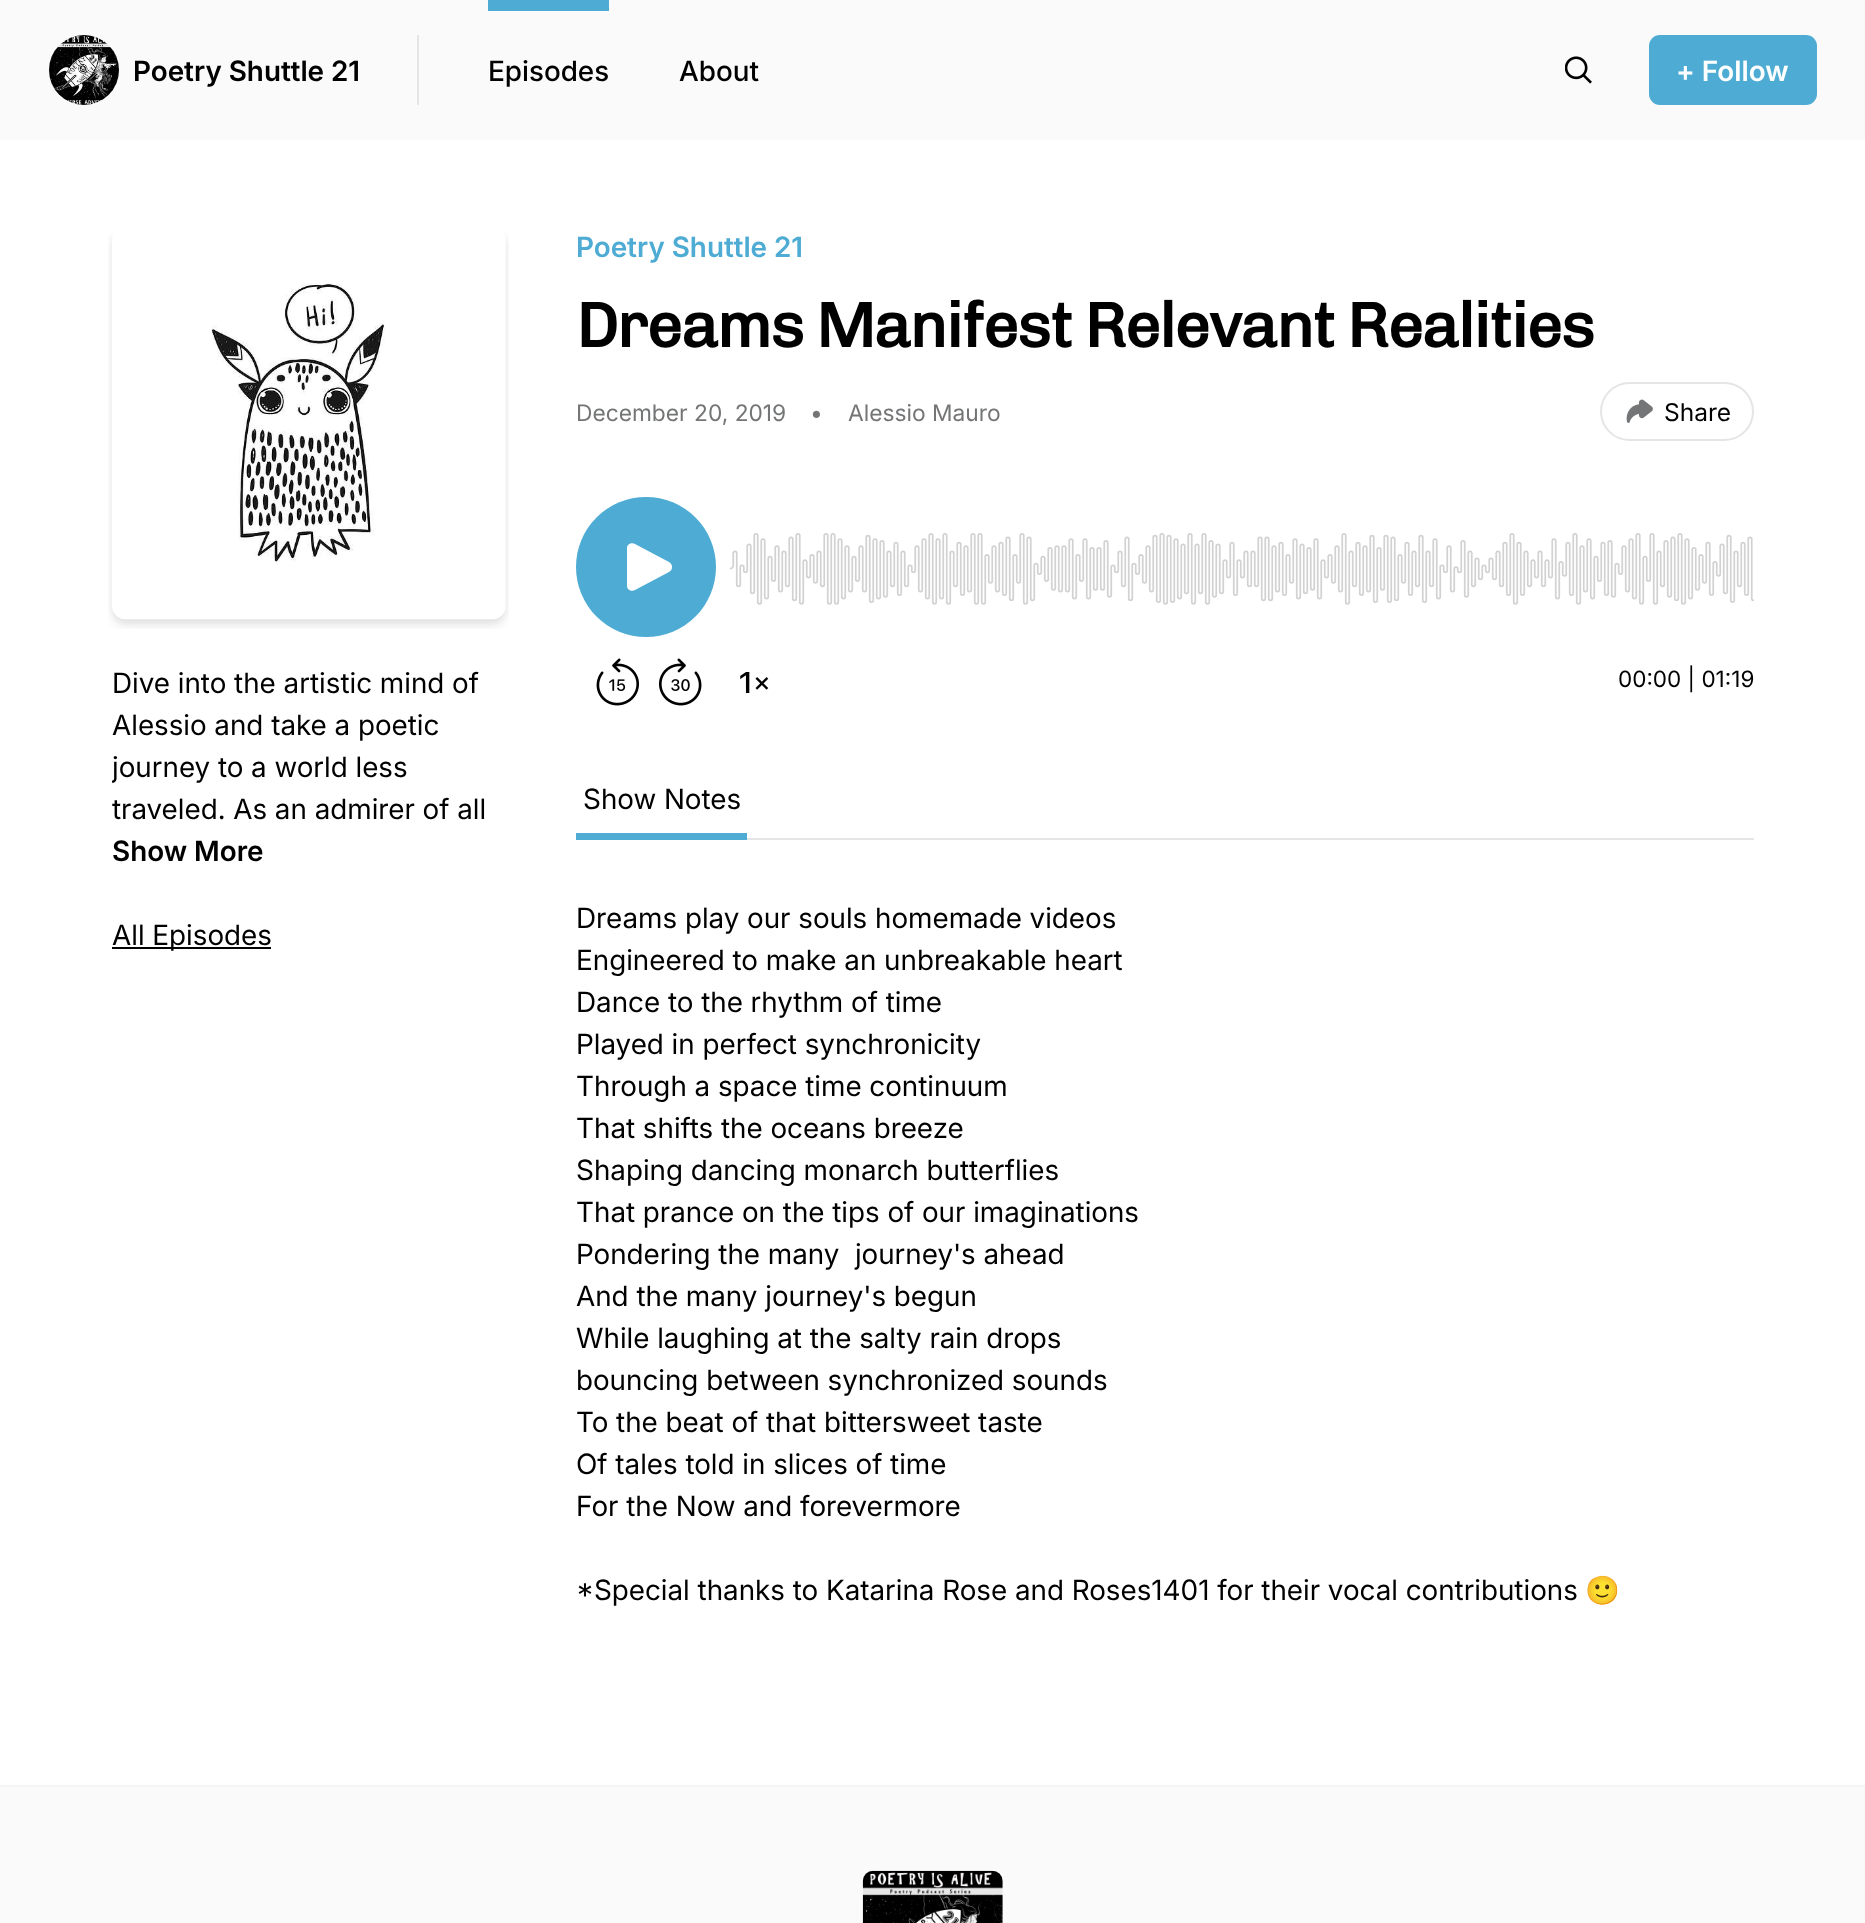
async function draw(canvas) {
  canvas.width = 1865;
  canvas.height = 1923;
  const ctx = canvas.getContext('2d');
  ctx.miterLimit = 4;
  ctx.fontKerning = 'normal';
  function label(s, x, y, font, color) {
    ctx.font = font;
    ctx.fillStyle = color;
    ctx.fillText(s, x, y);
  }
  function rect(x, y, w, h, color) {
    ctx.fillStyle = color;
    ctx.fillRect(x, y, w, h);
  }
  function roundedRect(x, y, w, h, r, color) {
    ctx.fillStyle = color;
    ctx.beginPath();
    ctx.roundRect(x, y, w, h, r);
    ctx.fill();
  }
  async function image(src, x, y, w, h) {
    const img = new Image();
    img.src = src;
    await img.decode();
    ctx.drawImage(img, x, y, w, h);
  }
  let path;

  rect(0, 0, 1865, 1923, '#fff');
  rect(0, 0, 1865, 140, '#fafafa');
  rect(417, 35, 2, 70, '#e4e5e6');
  await image('assets/img1.png', 49, 35, 70, 70);
  label('Poetry Shuttle 21', 133, 81, '600 28px Inter', '#000');
  rect(488, 0, 121, 11, '#4eacd4');
  label('Episodes', 488, 81, '500 28px Inter', '#000');
  label('About', 679, 81, '500 28px Inter', '#000');
  await image('assets/img2.png', 1565, 56, 27, 28);
  roundedRect(1649, 35, 168, 70, 11, '#4eacd4');
  label('+ Follow', 1676, 81, '600 28px Inter', '#fff');
  await image('assets/img3.png', 108, 233, 401, 396);
  label('Dive into the artistic mind of', 112, 693, '28px Inter', '#000');
  label('Alessio and take a poetic', 112, 735, '28px Inter', '#000');
  ctx.save();
  ctx.beginPath();
  ctx.rect(112, 662, 394, 168);
  ctx.clip();
  label('journey to a world less', 112, 777, '28px Inter', '#000');
  ctx.restore();
  label('traveled. As an admirer of all', 112, 819, '28px Inter', '#000');
  label('Show More', 112, 861, '600 28px Inter', '#000');
  rect(112, 947, 159, 2, '#000');
  label('All Episodes', 112, 945, '28px Inter', '#000');
  label('Poetry Shuttle 21', 576, 257, '600 28px Inter', '#4eacd4');
  ctx.letterSpacing = '-1.55px';
  label('Dreams Manifest Relevant Realities', 576, 347, 'bold 63px Chivo', '#000');
  ctx.letterSpacing = '0px';
  label('December 20, 2019', 576, 421, '22.75px "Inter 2"', '#747576');
  label('•', 810, 421, '22.75px "Inter 2"', '#747576');
  label('Alessio Mauro', 848, 421, '22.75px "Inter 2"', '#747576');
  ctx.beginPath();
  ctx.roundRect(1601, 383, 152, 57, 28.5);
  ctx.strokeStyle = '#e4e5e6';
  ctx.lineWidth = 2;
  ctx.stroke();
  await image('assets/img4.png', 1626, 399, 27, 24);
  label('Share', 1664, 421, '24.5px "Inter 2"', '#000');
  await image('assets/img5.png', 596, 658, 43, 48);
  await image('assets/img6.png', 659, 658, 43, 48);
  await image('assets/img7.png', 740, 672, 29, 21);
  ctx.fillStyle = '#4eacd4';
  ctx.beginPath();
  ctx.arc(646, 567, 70, 0, 2 * Math.PI);
  ctx.fill();
  ctx.fillStyle = '#fff';
  path = new Path2D('M627 548C627 544 632 542 635 544L669 562C673 564 673 570 669 572L635 590C632 592 627 590 627 586Z');
  ctx.fill(path, 'evenodd');
  await image('assets/img8.png', 730, 533, 1024, 72);
  label('00:00 | 01:19', 1618, 687, '22.5px "Inter 2"', '#000');
  rect(747, 838, 1007, 2, '#e4e5e6');
  rect(576, 833, 171, 7, '#4eacd4');
  label('Show Notes', 583, 809, '28px Inter', '#000');
  label('Dreams play our souls homemade videos', 576, 928, '28px Inter', '#000');
  label('Engineered to make an unbreakable heart', 576, 970, '28px Inter', '#000');
  label('Dance to the rhythm of time', 576, 1012, '28px Inter', '#000');
  label('Played in perfect synchronicity', 576, 1054, '28px Inter', '#000');
  label('Through a space time continuum', 576, 1096, '28px Inter', '#000');
  label('That shifts the oceans breeze', 576, 1138, '28px Inter', '#000');
  label('Shaping dancing monarch butterflies', 576, 1180, '28px Inter', '#000');
  label('That prance on the tips of our imaginations', 576, 1222, '28px Inter', '#000');
  label('Pondering the many  journey\'s ahead', 576, 1264, '28px Inter', '#000');
  label('And the many journey\'s begun', 576, 1306, '28px Inter', '#000');
  label('While laughing at the salty rain drops', 576, 1348, '28px Inter', '#000');
  label('bouncing between synchronized sounds', 576, 1390, '28px Inter', '#000');
  label('To the beat of that bittersweet taste', 576, 1432, '28px Inter', '#000');
  label('Of tales told in slices of time', 576, 1474, '28px Inter', '#000');
  label('For the Now and forevermore', 576, 1516, '28px Inter', '#000');
  label('*Special thanks to Katarina Rose and Roses1401 for their vocal contributions', 576, 1600, '28px Inter', '#000');
  label('🙂', 1585, 1600, '28px Noto Color Emoji', '#000');
  rect(0, 1787, 1865, 136, '#fafafa');
  rect(0, 1785, 1865, 2, '#f4f4f4');
  await image('assets/img9.png', 862, 1870, 141, 53);
}

draw(document.querySelector('canvas'));
